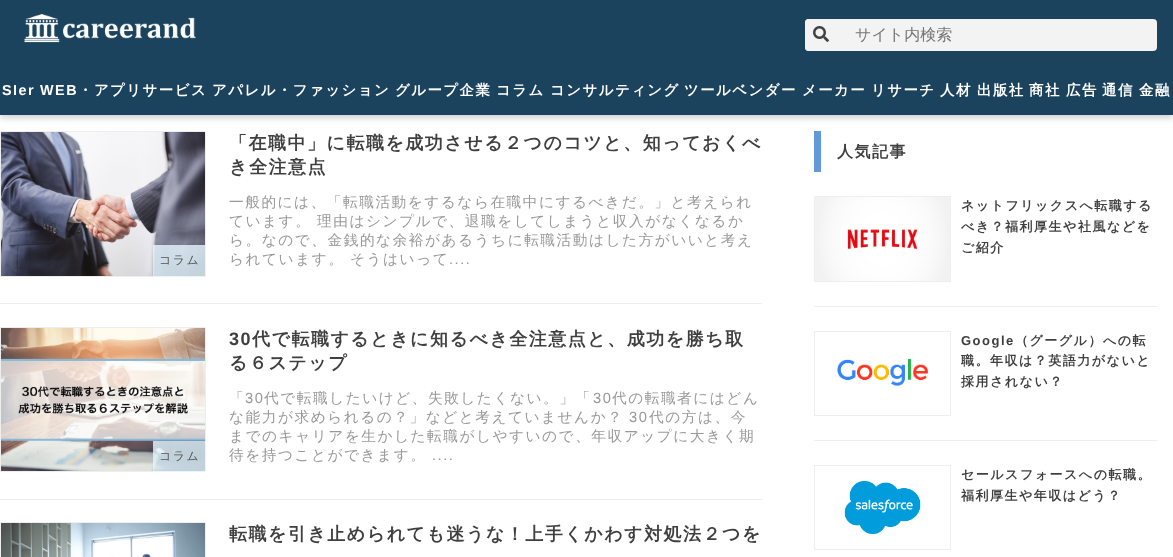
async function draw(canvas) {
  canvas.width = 1173;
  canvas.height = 557;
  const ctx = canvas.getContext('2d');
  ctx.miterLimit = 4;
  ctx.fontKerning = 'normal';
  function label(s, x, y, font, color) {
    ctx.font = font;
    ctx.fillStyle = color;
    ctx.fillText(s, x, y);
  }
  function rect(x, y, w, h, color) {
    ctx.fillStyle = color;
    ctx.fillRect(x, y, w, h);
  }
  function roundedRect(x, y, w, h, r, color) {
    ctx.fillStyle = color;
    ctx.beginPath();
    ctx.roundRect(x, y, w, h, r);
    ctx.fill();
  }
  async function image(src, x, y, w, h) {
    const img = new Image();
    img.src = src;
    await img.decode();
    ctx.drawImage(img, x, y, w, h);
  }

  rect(0, 0, 1173, 557, '#fff');
  ctx.fillStyle = '#0000002e';
  ctx.filter = 'blur(3px)';
  ctx.beginPath();
  ctx.rect(0, 3, 1173, 115);
  ctx.fill();
  ctx.filter = 'none';
  rect(0, 0, 1173, 115, '#1b435d');
  await image('assets/img1.png', 24, 14, 172, 29);
  roundedRect(805, 19, 352, 32, 4, '#f3f3f3');
  roundedRect(805, 19, 32, 32, 4, '#f3f3f3');
  await image('assets/img2.png', 813, 26, 16, 16);
  label('サイト内検索', 855, 40, '500 16px WenQuanYi Zen Hei', '#757575');
  ctx.letterSpacing = '1.5px';
  label('SIer', 2, 95, 'bold 14.4px Liberation Sans', '#fff');
  label('WEB', 40, 95, 'bold 14.4px Liberation Sans', '#fff');
  label('・アプリサービス', 78, 95, 'bold 14.4px WenQuanYi Zen Hei', '#fff');
  label('アパレル・ファッション', 212, 95, 'bold 14.4px WenQuanYi Zen Hei', '#fff');
  label('グループ企業', 395, 95, 'bold 14.4px WenQuanYi Zen Hei', '#fff');
  label('コラム', 496, 95, 'bold 14.4px WenQuanYi Zen Hei', '#fff');
  label('コンサルティング', 550, 95, 'bold 14.4px WenQuanYi Zen Hei', '#fff');
  label('ツールベンダー', 684, 95, 'bold 14.4px WenQuanYi Zen Hei', '#fff');
  label('メーカー', 802, 95, 'bold 14.4px WenQuanYi Zen Hei', '#fff');
  label('リサーチ', 871, 95, 'bold 14.4px WenQuanYi Zen Hei', '#fff');
  label('人材', 940, 95, 'bold 14.4px WenQuanYi Zen Hei', '#fff');
  label('出版社', 977, 95, 'bold 14.4px WenQuanYi Zen Hei', '#fff');
  label('商社', 1029, 95, 'bold 14.4px WenQuanYi Zen Hei', '#fff');
  label('広告', 1066, 95, 'bold 14.4px WenQuanYi Zen Hei', '#fff');
  label('通信', 1102, 95, 'bold 14.4px WenQuanYi Zen Hei', '#fff');
  label('金融', 1139, 95, 'bold 14.4px WenQuanYi Zen Hei', '#fff');
  rect(0, 303, 762, 1, '#eee');
  await image('assets/img3.png', 1, 132, 204, 144);
  ctx.strokeStyle = '#eee';
  ctx.strokeRect(0.5, 131.5, 205, 145);
  rect(153, 245, 53, 32, '#e6f7ffcc');
  label('コラム', 159, 264, '500 12px WenQuanYi Zen Hei', '#525456');
  label('「在職中」に転職を成功させる２つのコツと、知っておくべ', 229, 149, 'bold 18px WenQuanYi Zen Hei', '#3f3f3f');
  label('き全注意点', 229, 173, 'bold 18px WenQuanYi Zen Hei', '#3f3f3f');
  label('一般的には、「転職活動をするなら在職中にするべきだ。」と考えられ', 229, 207, '500 14.7px WenQuanYi Zen Hei', '#999');
  label('ています。', 229, 226, '500 14.7px WenQuanYi Zen Hei', '#999');
  label('理由はシンプルで、退職をしてしまうと収入がなくなるか', 317, 226, '500 14.7px WenQuanYi Zen Hei', '#999');
  label('ら。なので、金銭的な余裕があるうちに転職活動はした方がいいと考え', 229, 245, '500 14.7px WenQuanYi Zen Hei', '#999');
  label('られています。', 229, 264, '500 14.7px WenQuanYi Zen Hei', '#999');
  label('そうはいって', 350, 264, '500 14.7px WenQuanYi Zen Hei', '#999');
  label('....', 449, 264, '14.7px Liberation Sans', '#999');
  rect(0, 499, 762, 1, '#eee');
  await image('assets/img4.png', 1, 328, 204, 143);
  ctx.strokeRect(0.5, 327.5, 205, 144);
  rect(153, 441, 53, 31, '#e6f7ffcc');
  label('コラム', 159, 460, '500 12px WenQuanYi Zen Hei', '#525456');
  label('30', 229, 345, 'bold 18px Liberation Sans', '#3f3f3f');
  label('代で転職するときに知るべき全注意点と、成功を勝ち取', 252, 345, 'bold 18px WenQuanYi Zen Hei', '#3f3f3f');
  label('る６ステップ', 229, 369, 'bold 18px WenQuanYi Zen Hei', '#3f3f3f');
  label('「', 229, 403, '500 14.7px WenQuanYi Zen Hei', '#999');
  label('30', 245, 403, '14.7px Liberation Sans', '#999');
  label('代で転職したいけど、失敗したくない。」「', 264, 403, '500 14.7px WenQuanYi Zen Hei', '#999');
  label('30', 593, 403, '14.7px Liberation Sans', '#999');
  label('代の転職者にはどん', 612, 403, '500 14.7px WenQuanYi Zen Hei', '#999');
  label('な能力が求められるの？」などと考えていませんか？', 229, 422, '500 14.7px WenQuanYi Zen Hei', '#999');
  label('30', 629, 422, '14.7px Liberation Sans', '#999');
  label('代の方は、今', 649, 422, '500 14.7px WenQuanYi Zen Hei', '#999');
  label('までのキャリアを生かした転職がしやすいので、年収アップに大きく期', 229, 441, '500 14.7px WenQuanYi Zen Hei', '#999');
  label('待を持つことができます。', 229, 460, '500 14.7px WenQuanYi Zen Hei', '#999');
  label('....', 432, 460, '14.7px Liberation Sans', '#999');
  await image('assets/img5.png', 1, 523, 204, 34);
  ctx.strokeRect(0.5, 522.5, 205, 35);
  label('転職を引き止められても迷うな！上手くかわす対処法２つを', 229, 540, 'bold 18px WenQuanYi Zen Hei', '#3f3f3f');
  rect(814, 131, 7, 41, '#6299d8');
  label('人気記事', 837, 157, 'bold 16px WenQuanYi Zen Hei', '#3f3f3f');
  rect(814, 306, 343, 1, '#eee');
  await image('assets/img6.png', 815, 197, 135, 84);
  ctx.strokeRect(814.5, 196.5, 136, 85);
  label('ネットフリックスへ転職する', 961, 210, 'bold 13px WenQuanYi Zen Hei', '#3f3f3f');
  label('べき？福利厚生や社風などを', 961, 231, 'bold 13px WenQuanYi Zen Hei', '#3f3f3f');
  label('ご紹介', 961, 252, 'bold 13px WenQuanYi Zen Hei', '#3f3f3f');
  rect(814, 440, 343, 1, '#eee');
  await image('assets/img7.png', 837, 358, 91, 28);
  ctx.strokeRect(814.5, 331.5, 136, 84);
  label('Google', 961, 345, 'bold 13px Liberation Sans', '#3f3f3f');
  label('（グーグル）への転', 1015, 345, 'bold 13px WenQuanYi Zen Hei', '#3f3f3f');
  label('職。年収は？英語力がないと', 961, 365, 'bold 13px WenQuanYi Zen Hei', '#3f3f3f');
  label('採用されない？', 961, 386, 'bold 13px WenQuanYi Zen Hei', '#3f3f3f');
  await image('assets/img8.png', 844, 481, 77, 53);
  ctx.strokeRect(814.5, 465.5, 136, 84);
  label('セールスフォースへの転職。', 961, 479, 'bold 13px WenQuanYi Zen Hei', '#3f3f3f');
  label('福利厚生や年収はどう？', 961, 500, 'bold 13px WenQuanYi Zen Hei', '#3f3f3f');
}

draw(document.querySelector('canvas'));
